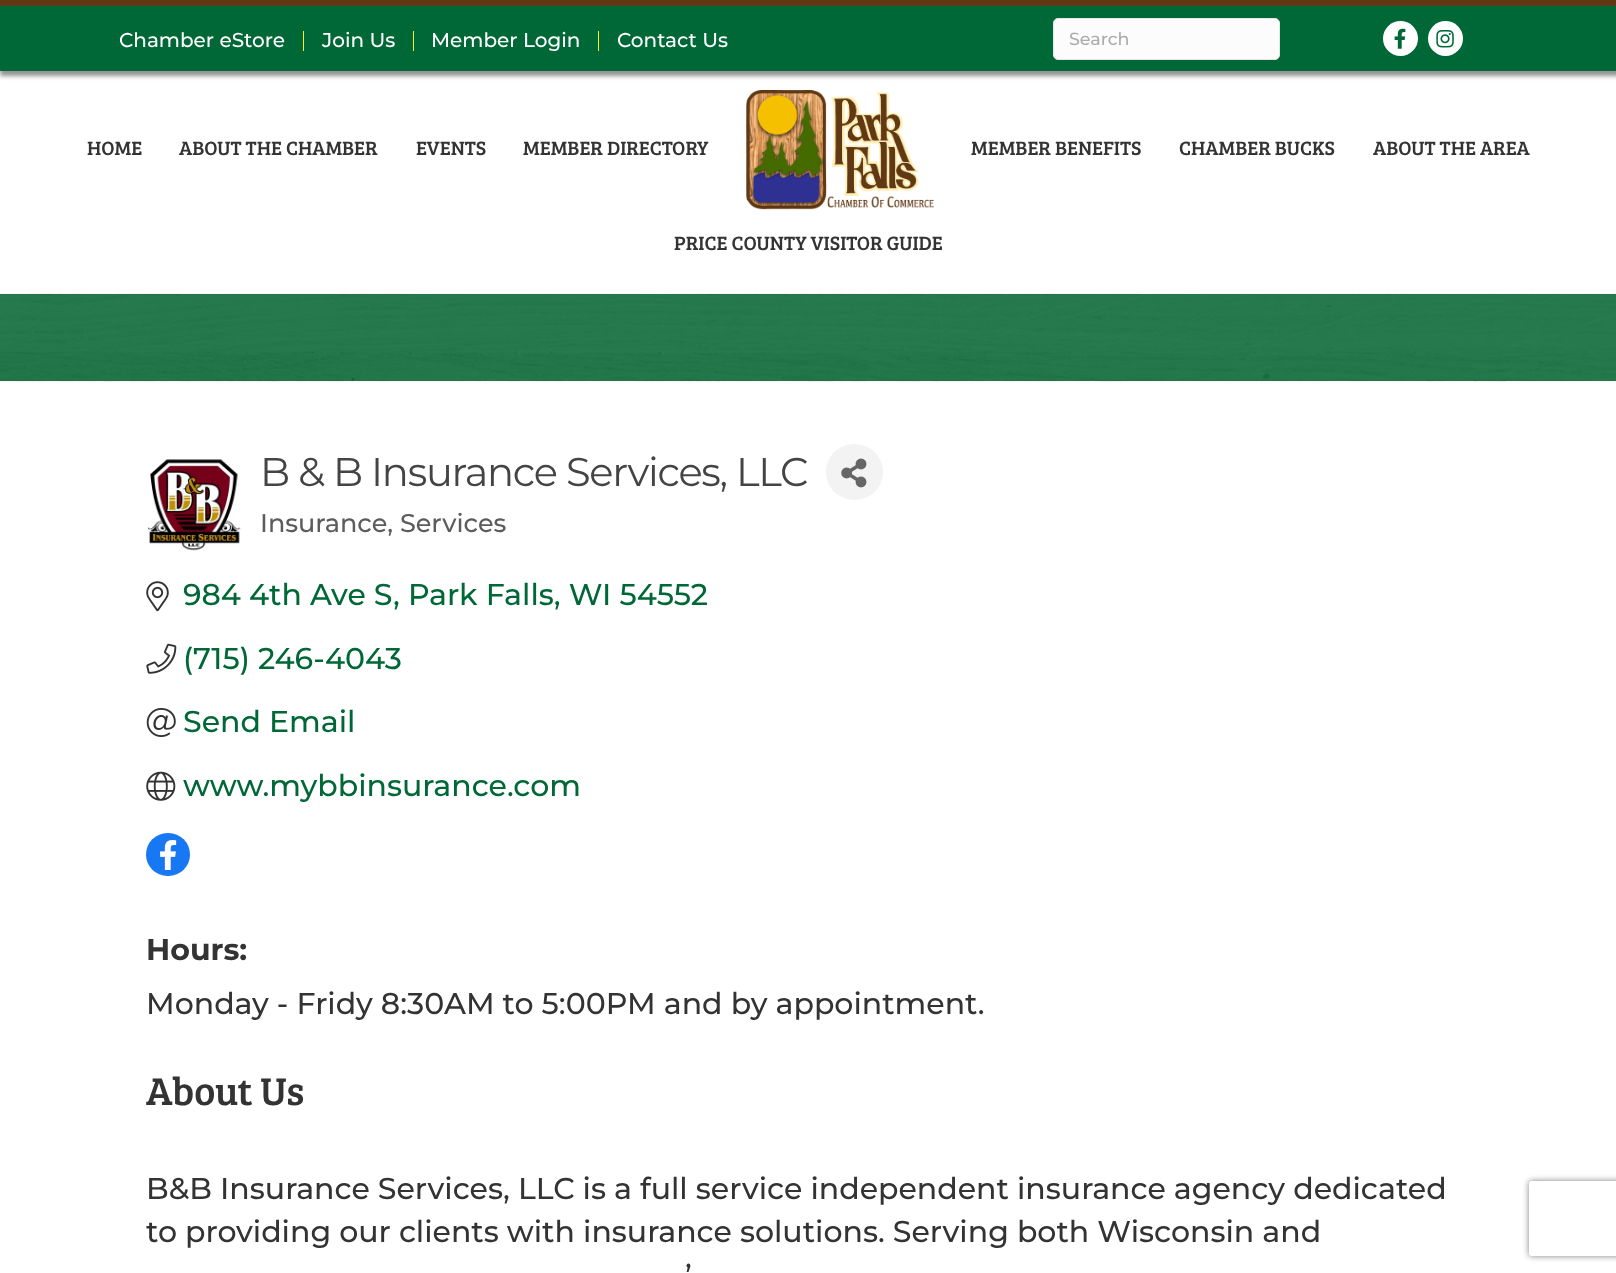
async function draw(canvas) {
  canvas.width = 1616;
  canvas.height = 1273;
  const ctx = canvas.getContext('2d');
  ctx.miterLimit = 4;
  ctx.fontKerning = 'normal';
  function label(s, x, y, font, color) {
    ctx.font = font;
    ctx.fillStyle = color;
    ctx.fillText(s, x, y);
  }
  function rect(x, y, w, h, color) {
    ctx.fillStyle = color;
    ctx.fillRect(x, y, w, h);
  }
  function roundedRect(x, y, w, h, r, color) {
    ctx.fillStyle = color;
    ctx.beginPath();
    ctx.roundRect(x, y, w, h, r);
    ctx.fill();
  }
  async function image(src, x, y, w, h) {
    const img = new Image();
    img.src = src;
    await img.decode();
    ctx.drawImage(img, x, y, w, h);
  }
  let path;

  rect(0, 0, 1616, 1273, '#fff');
  ctx.fillStyle = '#33333387';
  ctx.filter = 'blur(2px)';
  ctx.beginPath();
  ctx.rect(0, 0, 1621, 76);
  ctx.fill();
  ctx.filter = 'none';
  rect(0, 6, 1616, 65, '#006837');
  rect(0, 0, 1616, 6, '#603813');
  label('Chamber eStore', 119, 47, '500 20px Montserrat', '#fff');
  rect(303, 31, 1, 20, '#fcee21');
  label('Join Us', 322, 47, '500 20px Montserrat', '#fff');
  rect(413, 31, 1, 20, '#fcee21');
  label('Member Login', 431, 47, '500 20px Montserrat', '#fff');
  rect(598, 31, 1, 20, '#fcee21');
  label('Contact Us', 617, 47, '500 20px Montserrat', '#fff');
  ctx.fillStyle = '#fcfcfc';
  ctx.beginPath();
  ctx.roundRect(1053.5, 18.5, 226, 41, 4.5);
  ctx.fill();
  ctx.strokeStyle = '#e6e6e6';
  ctx.stroke();
  label('Search', 1069, 45, '500 17.5px Montserrat', '#acacac');
  ctx.fillStyle = '#fff';
  ctx.beginPath();
  ctx.arc(1400.5, 38.5, 17.5, 0, 2 * Math.PI);
  ctx.fill();
  await image('assets/img1.png', 1394, 28, 12, 21);
  ctx.beginPath();
  ctx.arc(1445.5, 38.5, 17.5, 0, 2 * Math.PI);
  ctx.fill();
  await image('assets/img2.png', 1436, 30, 18, 18);
  label('HOME', 87, 155, '20px Bree Serif', '#333');
  label('ABOUT THE CHAMBER', 179, 155, '20px Bree Serif', '#333');
  label('EVENTS', 416, 155, '20px Bree Serif', '#333');
  label('MEMBER DIRECTORY', 523, 155, '20px Bree Serif', '#333');
  await image('assets/img3.png', 746, 90, 188, 120);
  label('MEMBER BENEFITS', 971, 155, '20px Bree Serif', '#333');
  label('CHAMBER BUCKS', 1179, 155, '20px Bree Serif', '#333');
  label('ABOUT THE AREA', 1373, 155, '20px Bree Serif', '#333');
  label('PRICE COUNTY VISITOR GUIDE', 674, 250, '20px Bree Serif', '#333');
  await image('assets/img4.png', 0, 293, 1616, 89);
  await image('assets/img5.png', 148, 459, 93, 92);
  ctx.letterSpacing = '-1.25px';
  label('B & B Insurance Services, LLC', 260, 486, '40px Montserrat', '#444');
  roundedRect(826, 444, 57, 56, 28, '#f3f3f3');
  await image('assets/img6.png', 841, 458, 26, 30);
  ctx.letterSpacing = '0px';
  label('Insurance, Services', 260, 532, '500 25.5px Montserrat', '#5c5c5c');
  await image('assets/img7.png', 146, 581, 23, 31);
  label('984 4th Ave S', 183, 605, '500 30px Montserrat', '#006837');
  label(', Park Falls, WI 54552', 393, 605, '500 30px Montserrat', '#006837');
  await image('assets/img8.png', 146, 643, 31, 31);
  label('(715) 246-4043', 183, 669, '500 30px Montserrat', '#006837');
  await image('assets/img9.png', 146, 708, 30, 29);
  label('Send Email', 183, 732, '500 30px Montserrat', '#006837');
  await image('assets/img10.png', 146, 771, 30, 30);
  label('www.mybbinsurance.com', 183, 796, '500 30px Montserrat', '#006837');
  roundedRect(146, 833, 44, 43, 21.5, '#1877f2');
  await image('assets/img11.png', 160, 840, 17, 30);
  label('Hours:', 146, 960, 'bold 30px Montserrat', '#333');
  label('Monday - Fridy 8:30AM to 5:00PM and by appointment.', 146, 1014, '500 30px Montserrat', '#333');
  label('About Us', 146, 1105, '40px Bree Serif', '#333');
  label('B&B Insurance Services, LLC is a full service independent insurance agency dedicated', 146, 1199, '500 30px Montserrat', '#333');
  label('to providing our clients with insurance solutions. Serving both Wisconsin and', 146, 1242, '500 30px Montserrat', '#333');
  label('’', 685, 1286, '500 30px Montserrat', '#333');
  ctx.save();
  path = new Path2D('M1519 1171H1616V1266H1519ZM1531.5 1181H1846.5C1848 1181 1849 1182 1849 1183.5V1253.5C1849 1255 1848 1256 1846.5 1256H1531.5C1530 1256 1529 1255 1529 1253.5V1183.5C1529 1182 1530 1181 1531.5 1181Z');
  ctx.clip(path, 'evenodd');
  ctx.fillStyle = '#808080';
  ctx.filter = 'blur(3px)';
  ctx.beginPath();
  ctx.roundRect(1529, 1181, 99, 75, 2.5);
  ctx.fill();
  ctx.filter = 'none';
  ctx.restore();
}

draw(document.querySelector('canvas'));
